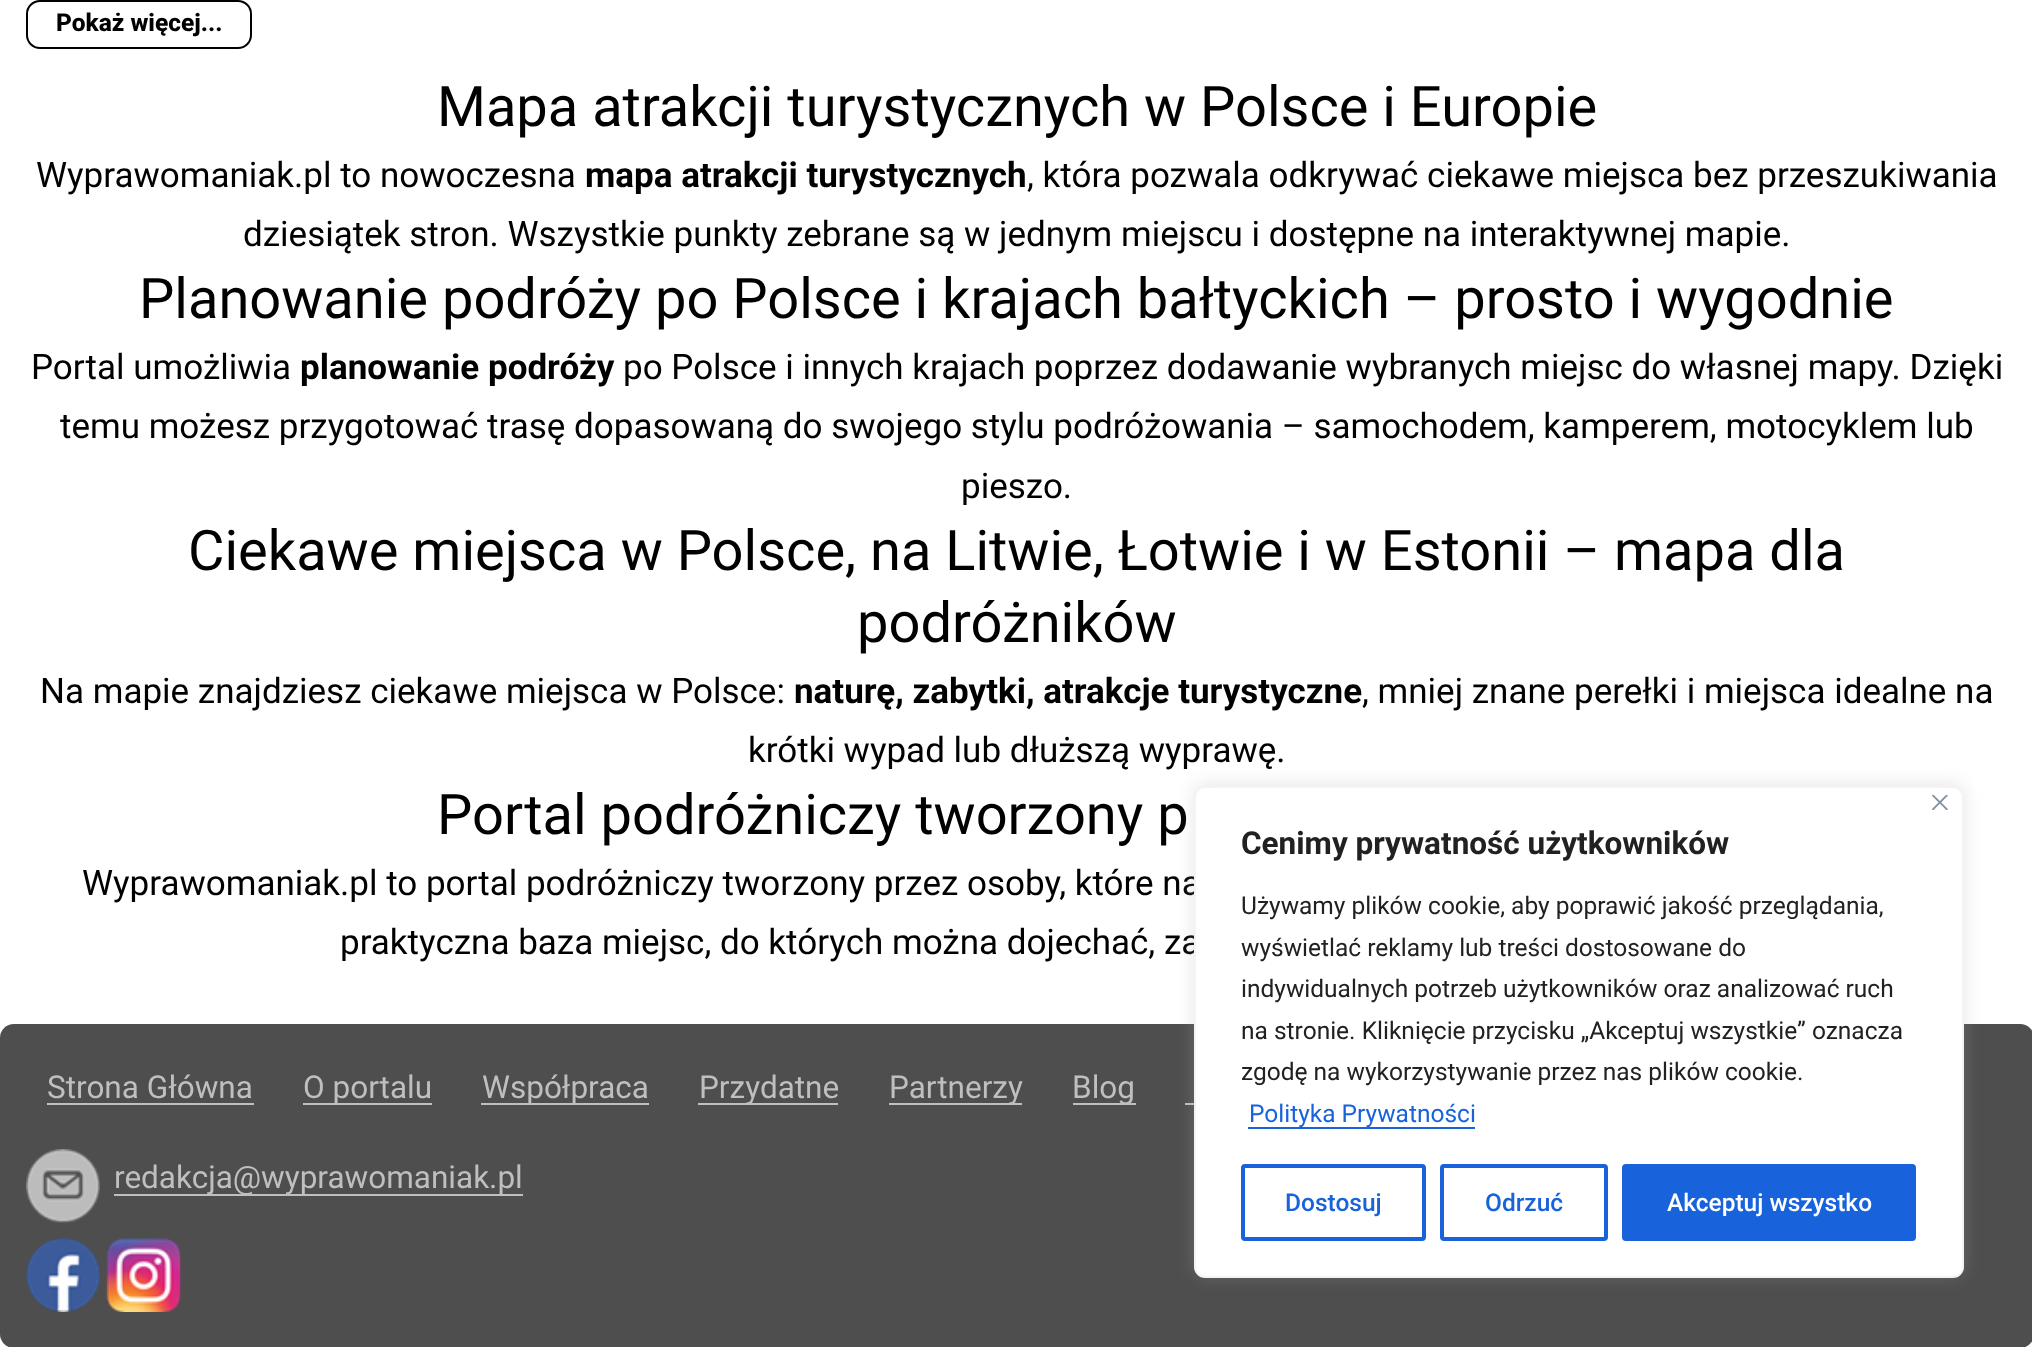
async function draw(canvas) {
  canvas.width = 2032;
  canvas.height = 1347;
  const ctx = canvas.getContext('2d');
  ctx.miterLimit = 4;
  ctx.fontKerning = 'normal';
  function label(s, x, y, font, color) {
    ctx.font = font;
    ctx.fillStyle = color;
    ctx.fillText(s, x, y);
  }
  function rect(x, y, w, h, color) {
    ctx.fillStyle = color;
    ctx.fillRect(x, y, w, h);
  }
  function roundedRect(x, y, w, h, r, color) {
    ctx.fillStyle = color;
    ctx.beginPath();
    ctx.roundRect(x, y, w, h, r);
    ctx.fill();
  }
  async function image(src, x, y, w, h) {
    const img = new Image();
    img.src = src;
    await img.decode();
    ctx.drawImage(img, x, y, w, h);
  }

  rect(0, 0, 2032, 1347, '#fff');
  ctx.beginPath();
  ctx.roundRect(27, 1, 224, 47, 13);
  ctx.strokeStyle = '#000';
  ctx.lineWidth = 2;
  ctx.stroke();
  label('Pokaż więcej...', 56, 31, '800 24.5px Roboto', '#000');
  label('Mapa atrakcji turystycznych w Polsce i Europie', 437, 126, '56px Roboto', '#000');
  label('Wyprawomaniak.pl to nowoczesna', 36, 187, '35px Roboto', '#000');
  label('mapa atrakcji turystycznych', 585, 187, 'bold 35px Roboto', '#000');
  label(', która pozwala odkrywać ciekawe miejsca bez przeszukiwania', 1027, 187, '35px Roboto', '#000');
  label('dziesiątek stron. Wszystkie punkty zebrane są w jednym miejscu i dostępne na interaktywnej mapie.', 243, 246, '35px Roboto', '#000');
  label('Planowanie podróży po Polsce i krajach bałtyckich – prosto i wygodnie', 139, 318, '56px Roboto', '#000');
  label('Portal umożliwia', 31, 379, '35px Roboto', '#000');
  label('planowanie podróży', 300, 379, 'bold 35px Roboto', '#000');
  label('po Polsce i innych krajach poprzez dodawanie wybranych miejsc do własnej mapy. Dzięki', 623, 379, '35px Roboto', '#000');
  label('temu możesz przygotować trasę dopasowaną do swojego stylu podróżowania – samochodem, kamperem, motocyklem lub', 60, 438, '35px Roboto', '#000');
  label('pieszo.', 961, 498, '35px Roboto', '#000');
  label('Ciekawe miejsca w Polsce, na Litwie, Łotwie i w Estonii – mapa dla', 188, 570, '56px Roboto', '#000');
  label('podróżników', 857, 642, '56px Roboto', '#000');
  label('Na mapie znajdziesz ciekawe miejsca w Polsce:', 40, 703, '35px Roboto', '#000');
  label('naturę, zabytki, atrakcje turystyczne', 794, 703, 'bold 35px Roboto', '#000');
  label(', mniej znane perełki i miejsca idealne na', 1362, 703, '35px Roboto', '#000');
  label('krótki wypad lub dłuższą wyprawę.', 748, 762, '35px Roboto', '#000');
  label('Portal podróżniczy tworzony p', 437, 834, '56px Roboto', '#000');
  label('Wyprawomaniak.pl to portal podróżniczy tworzony przez osoby, które na', 82, 895, '35px Roboto', '#000');
  label('praktyczna baza miejsc, do których można dojechać, za', 340, 954, '35px Roboto', '#000');
  roundedRect(0, 1024, 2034, 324, 14, '#4e4e4e');
  label('Strona Główna', 47, 1098, '31.5px Roboto', '#bfbfbf');
  rect(47, 1103, 207, 2, '#bfbfbf');
  rect(303, 1103, 129, 2, '#bfbfbf');
  label('O portalu', 303, 1098, '31.5px Roboto', '#bfbfbf');
  rect(481, 1103, 168, 2, '#bfbfbf');
  label('Współpraca', 482, 1098, '31.5px Roboto', '#bfbfbf');
  rect(698, 1103, 140, 2, '#bfbfbf');
  label('Przydatne', 699, 1098, '31.5px Roboto', '#bfbfbf');
  rect(889, 1103, 133, 2, '#bfbfbf');
  label('Partnerzy', 889, 1098, '31.5px Roboto', '#bfbfbf');
  rect(1073, 1103, 63, 2, '#bfbfbf');
  label('Blog', 1072, 1098, '31.5px Roboto', '#bfbfbf');
  rect(1185, 1103, 9, 2, '#bfbfbf');
  await image('assets/img1.png', 26, 1149, 74, 74);
  rect(114, 1194, 409, 2, '#bfbfbf');
  label('redakcja@wyprawomaniak.pl', 114, 1188, '31.5px Roboto', '#bfbfbf');
  await image('assets/img2.png', 26, 1238, 74, 74);
  await image('assets/img3.png', 106, 1238, 75, 74);
  ctx.fillStyle = '#acabab4d';
  ctx.filter = 'blur(9px)';
  ctx.beginPath();
  ctx.roundRect(1194, 784, 770, 492, 11);
  ctx.fill();
  ctx.filter = 'none';
  ctx.fillStyle = '#fff';
  ctx.beginPath();
  ctx.roundRect(1195, 787, 768, 490, 10);
  ctx.fill();
  ctx.strokeStyle = '#f4f4f4';
  ctx.stroke();
  await image('assets/img4.png', 1932, 795, 16, 15);
  label('Cenimy prywatność użytkowników', 1241, 854, 'bold 31.5px Roboto', '#212121');
  label('Używamy plików cookie, aby poprawić jakość przeglądania,', 1241, 914, '24.5px Roboto', '#212121');
  label('wyświetlać reklamy lub treści dostosowane do', 1241, 956, '24.5px Roboto', '#212121');
  label('indywidualnych potrzeb użytkowników oraz analizować ruch', 1241, 997, '24.5px Roboto', '#212121');
  label('na stronie. Kliknięcie przycisku „Akceptuj wszystkie” oznacza', 1241, 1039, '24.5px Roboto', '#212121');
  label('zgodę na wykorzystywanie przez nas plików cookie.', 1241, 1080, '24.5px Roboto', '#212121');
  rect(1248, 1127, 227, 2, '#1863dc');
  label('Polityka Prywatności', 1249, 1122, '24.5px Roboto', '#1863dc');
  ctx.beginPath();
  ctx.roundRect(1243, 1166, 181, 73, 2);
  ctx.strokeStyle = '#1863dc';
  ctx.lineWidth = 4;
  ctx.stroke();
  label('Dostosuj', 1285, 1211, '500 24.5px Roboto', '#1863dc');
  ctx.beginPath();
  ctx.roundRect(1442, 1166, 164, 73, 2);
  ctx.stroke();
  label('Odrzuć', 1485, 1211, '500 24.5px Roboto', '#1863dc');
  ctx.beginPath();
  ctx.roundRect(1624, 1166, 290, 73, 2);
  ctx.fill();
  ctx.stroke();
  label('Akceptuj wszystko', 1667, 1211, '500 24.5px Roboto', '#fff');
}

draw(document.querySelector('canvas'));
